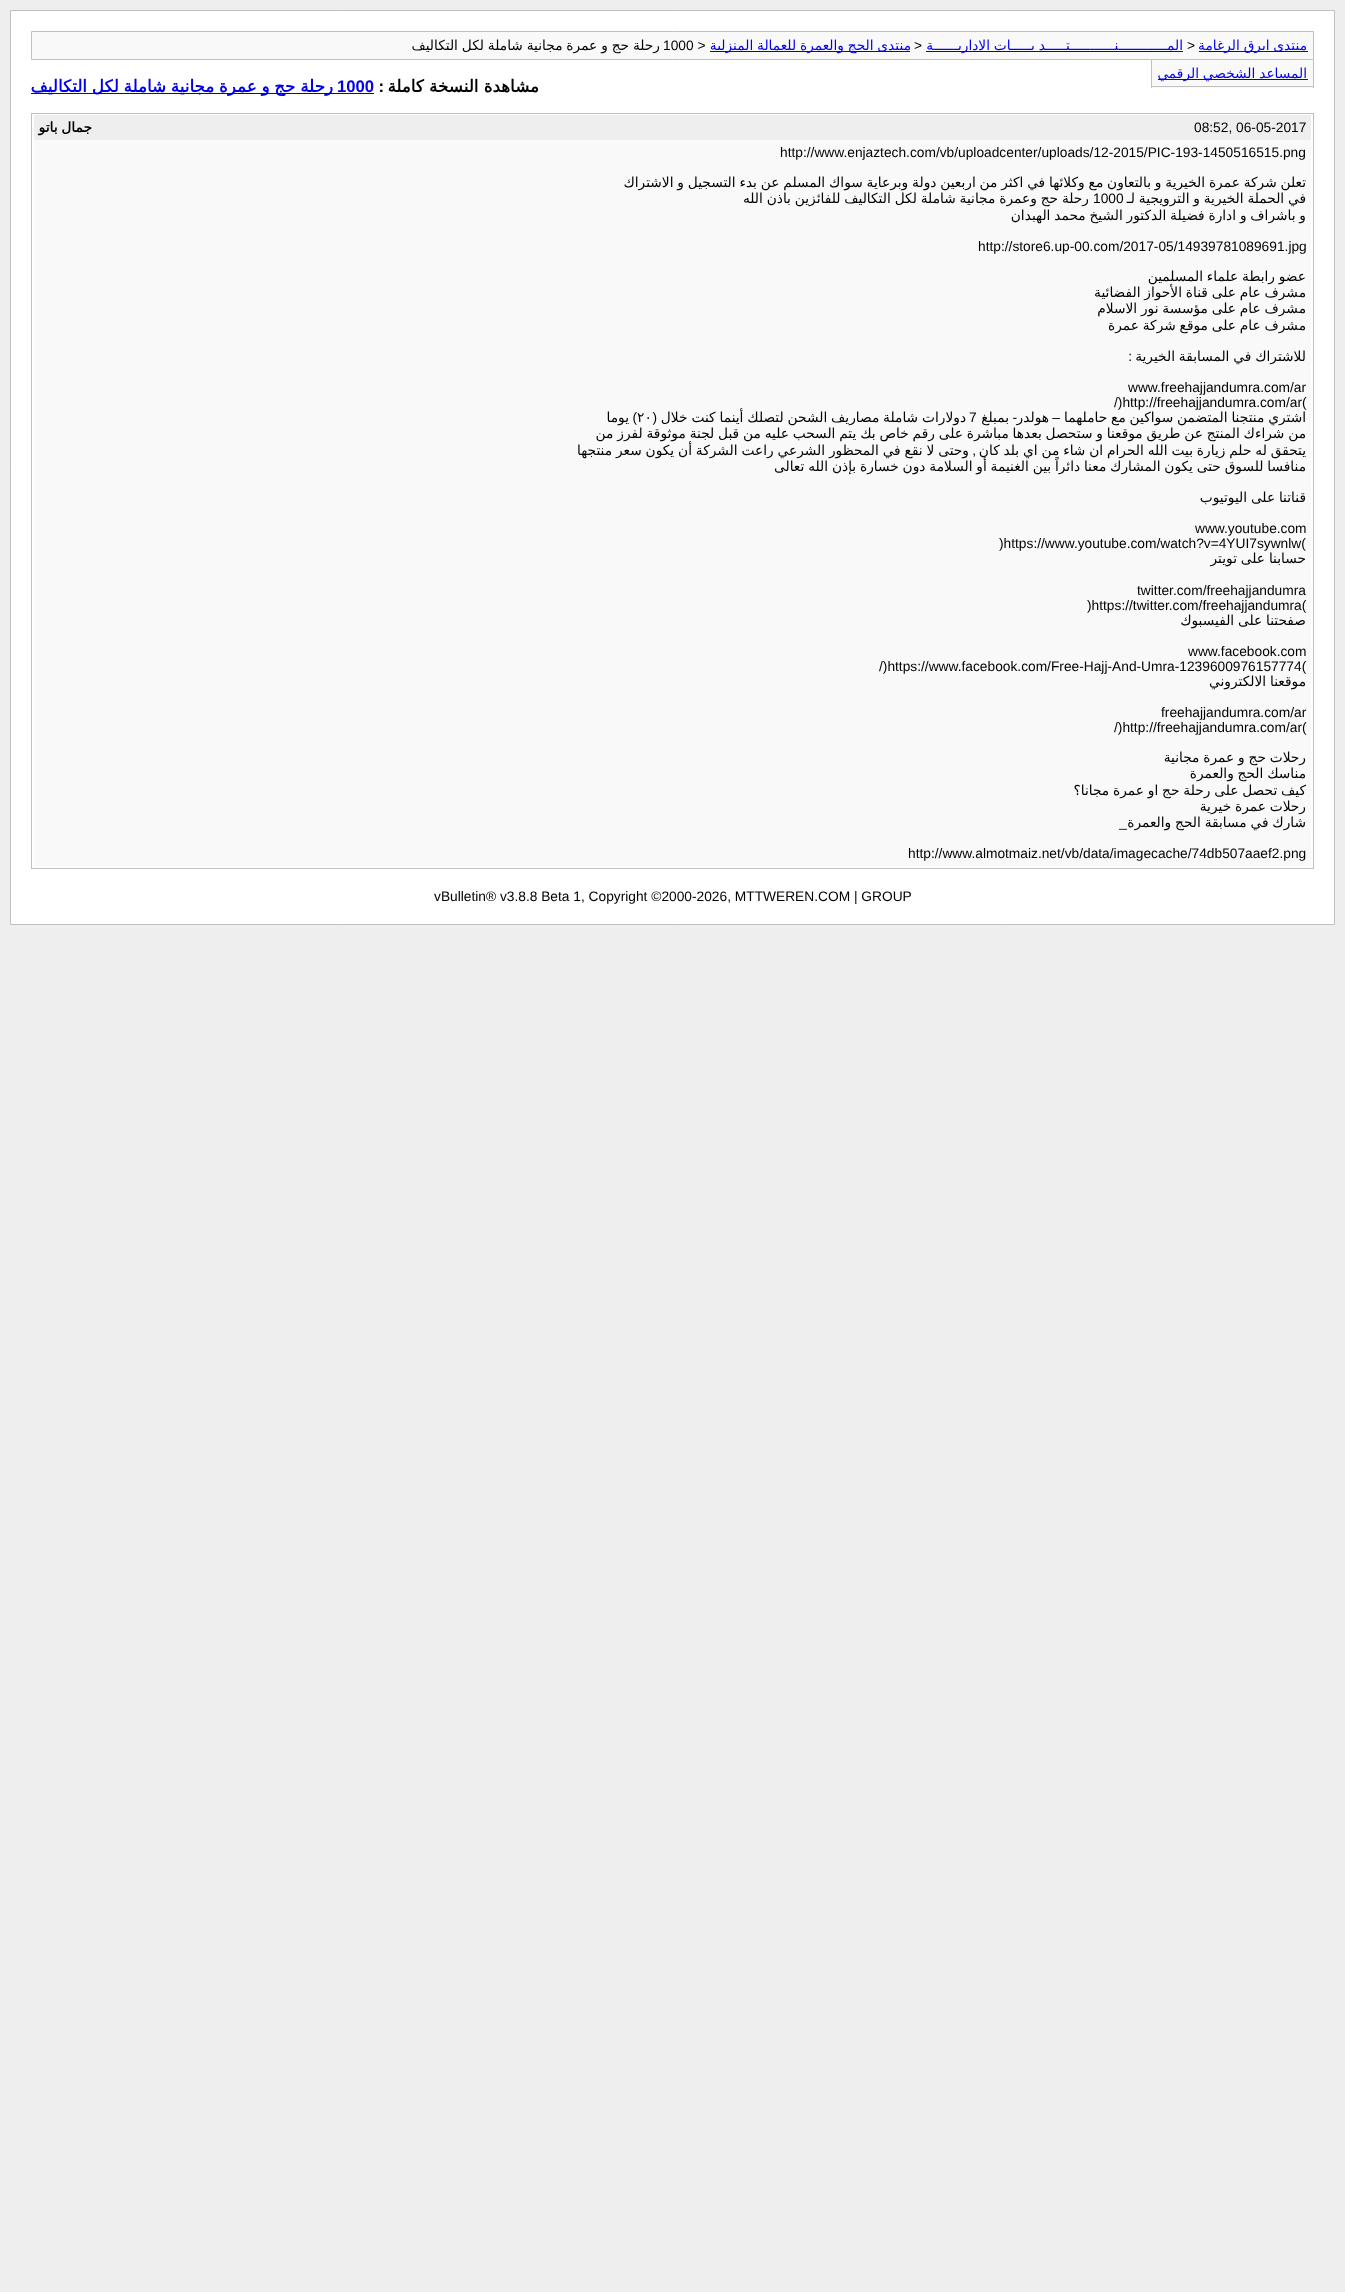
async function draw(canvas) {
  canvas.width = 1345;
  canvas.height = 2292;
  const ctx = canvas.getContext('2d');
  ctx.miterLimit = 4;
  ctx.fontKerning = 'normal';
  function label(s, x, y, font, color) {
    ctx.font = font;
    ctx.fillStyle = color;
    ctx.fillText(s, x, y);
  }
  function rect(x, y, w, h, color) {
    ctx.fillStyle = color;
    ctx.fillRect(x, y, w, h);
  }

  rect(0, 0, 1345, 2292, '#eee');
  ctx.fillStyle = '#fff';
  ctx.beginPath();
  ctx.rect(10.5, 10.5, 1324, 914);
  ctx.fill();
  ctx.strokeStyle = '#c0c0c0';
  ctx.stroke();
  ctx.fillStyle = '#f9f9f9';
  ctx.beginPath();
  ctx.rect(31.5, 31.5, 1282, 28);
  ctx.fill();
  ctx.stroke();
  rect(1199, 51, 109, 1, '#00e');
  ctx.wordSpacing = '-0.55px';
  ctx.direction = 'rtl';
  label('منتدى ابرق الرغامة', 1307, 50, '13.75px DejaVu Sans', '#00e');
  ctx.wordSpacing = '0px';
  ctx.direction = 'ltr';
  label('>', 1187, 50, '13.75px Liberation Sans', '#000');
  rect(926, 51, 257, 1, '#00e');
  ctx.wordSpacing = '-0.55px';
  ctx.direction = 'rtl';
  label('المــــــــــــنـــــــــــتـــــد يـــــات الاداريــــــة', 1183, 50, '13.75px DejaVu Sans', '#00e');
  ctx.wordSpacing = '0px';
  ctx.direction = 'ltr';
  label('>', 914, 50, '13.75px Liberation Sans', '#000');
  rect(710, 51, 200, 1, '#00e');
  ctx.wordSpacing = '-0.55px';
  ctx.direction = 'rtl';
  label('منتدى الحج والعمرة للعمالة المنزلية', 911, 50, '13.75px DejaVu Sans', '#00e');
  ctx.wordSpacing = '0px';
  ctx.direction = 'ltr';
  label('1000 >', 663, 50, '13.75px Liberation Sans', '#000');
  ctx.wordSpacing = '-0.5px';
  ctx.direction = 'rtl';
  label('رحلة حج و عمرة مجانية شاملة لكل التكاليف', 660, 50, '13.75px DejaVu Sans', '#000');
  rect(1152, 60, 161, 28, '#f9f9f9');
  rect(1313, 60, 1, 28, '#c0c0c0');
  rect(1151, 86, 163, 1, '#c0c0c0');
  rect(1151, 60, 1, 28, '#c0c0c0');
  rect(1158, 79, 150, 1, '#00e');
  ctx.wordSpacing = '-0.55px';
  label('المساعد الشخصي الرقمي', 1307, 78, '13.75px DejaVu Sans', '#00e');
  ctx.wordSpacing = '0px';
  label('مشاهدة النسخة كاملة', 539, 92, 'bold 16.7px DejaVu Sans', '#000');
  label(':', 384, 92, 'bold 16.7px Liberation Sans', '#000');
  ctx.direction = 'ltr';
  label('1000', 337, 92, 'bold 16.7px Liberation Sans', '#00e');
  rect(31, 93, 343, 1, '#00e');
  ctx.wordSpacing = '-0.5px';
  ctx.direction = 'rtl';
  label('رحلة حج و عمرة مجانية شاملة لكل التكاليف', 333, 92, 'bold 16.7px DejaVu Sans', '#00e');
  ctx.strokeRect(31.5, 113.5, 1282, 755);
  rect(34, 115, 1277, 25, '#eee');
  ctx.wordSpacing = '0px';
  ctx.direction = 'ltr';
  label('08:52, 06-05-2017', 1194, 132, '13.75px Liberation Sans', '#000');
  ctx.wordSpacing = '-0.55px';
  ctx.direction = 'rtl';
  label('جمال باتو', 92, 132, 'bold 13.75px DejaVu Sans', '#000');
  rect(34, 140, 1277, 726, '#f9f9f9');
  ctx.wordSpacing = '0px';
  ctx.direction = 'ltr';
  label('http://www.enjaztech.com/vb/uploadcenter/uploads/12-2015/PIC-193-1450516515.png', 780, 157, '13.75px Liberation Sans', '#000');
  ctx.wordSpacing = '-0.55px';
  ctx.direction = 'rtl';
  label('تعلن شركة عمرة الخيرية و بالتعاون مع وكلائها في اكثر من اربعين دولة وبرعاية سواك المسلم عن بدء التسجيل و الاشتراك', 1306, 187, '13.75px DejaVu Sans', '#000');
  label('في الحملة الخيرية و الترويجية لـ', 1306, 203, '13.75px DejaVu Sans', '#000');
  ctx.wordSpacing = '0px';
  ctx.direction = 'ltr';
  label('1000', 1093, 203, '13.75px Liberation Sans', '#000');
  ctx.wordSpacing = '-0.5px';
  ctx.direction = 'rtl';
  label('رحلة حج وعمرة مجانية شاملة لكل التكاليف للفائزين باذن الله', 1089, 203, '13.75px DejaVu Sans', '#000');
  ctx.wordSpacing = '-0.55px';
  label('و باشراف و ادارة فضيلة الدكتور الشيخ محمد الهبدان', 1306, 220, '13.75px DejaVu Sans', '#000');
  ctx.wordSpacing = '0px';
  ctx.direction = 'ltr';
  label('http://store6.up-00.com/2017-05/14939781089691.jpg', 978, 251, '13.75px Liberation Sans', '#000');
  ctx.wordSpacing = '-0.55px';
  ctx.direction = 'rtl';
  label('عضو رابطة علماء المسلمين', 1306, 281, '13.75px DejaVu Sans', '#000');
  label('مشرف عام على قناة الأحواز الفضائية', 1306, 297, '13.75px DejaVu Sans', '#000');
  label('مشرف عام على مؤسسة نور الاسلام', 1306, 313, '13.75px DejaVu Sans', '#000');
  label('مشرف عام على موقع شركة عمرة', 1306, 330, '13.75px DejaVu Sans', '#000');
  ctx.wordSpacing = '-0.5px';
  label('للاشتراك في المسابقة الخيرية', 1306, 361, '13.75px DejaVu Sans', '#000');
  ctx.wordSpacing = '0px';
  label(':', 1132, 361, '13.75px Liberation Sans', '#000');
  ctx.direction = 'ltr';
  label('www.freehajjandumra.com/ar', 1128, 392, '13.75px Liberation Sans', '#000');
  label('/)http://freehajjandumra.com/ar(', 1114, 407, '13.75px Liberation Sans', '#000');
  ctx.wordSpacing = '-0.5px';
  ctx.direction = 'rtl';
  label('اشتري منتجنا المتضمن سواكين مع حاملهما', 1306, 422, '13.75px DejaVu Sans', '#000');
  ctx.wordSpacing = '0px';
  label('–', 1060, 422, '13.75px Liberation Sans', '#000');
  label('-', 1017, 422, '13.75px Liberation Sans', '#000');
  label('هولدر', 1049, 422, '13.75px DejaVu Sans', '#000');
  label('بمبلغ', 1009, 422, '13.75px DejaVu Sans', '#000');
  ctx.direction = 'ltr';
  label('7', 969, 422, '13.75px Liberation Sans', '#000');
  ctx.wordSpacing = '-0.5px';
  ctx.direction = 'rtl';
  label('دولارات شاملة مصاريف الشحن لتصلك أينما كنت خلال', 966, 422, '13.75px DejaVu Sans', '#000');
  ctx.wordSpacing = '0px';
  label('(', 657, 422, '13.75px Liberation Sans', '#000');
  ctx.direction = 'ltr';
  label('٢٠', 637, 422, '13.75px DejaVu Sans', '#000');
  ctx.direction = 'rtl';
  label(')', 637, 422, '13.75px Liberation Sans', '#000');
  label('يوما', 629, 422, '13.75px DejaVu Sans', '#000');
  ctx.wordSpacing = '-0.55px';
  label('من شراءك المنتج عن طريق موقعنا و ستحصل بعدها مباشرة على رقم خاص بك يتم السحب عليه من قبل لجنة موثوقة لفرز من', 1306, 438, '13.75px DejaVu Sans', '#000');
  ctx.wordSpacing = '-0.5px';
  label('يتحقق له حلم زيارة بيت الله الحرام ان شاء من اي بلد كان', 1306, 455, '13.75px DejaVu Sans', '#000');
  ctx.wordSpacing = '0px';
  label(',', 976, 455, '13.75px Liberation Sans', '#000');
  ctx.wordSpacing = '-0.5px';
  label('وحتى لا نقع في المحظور الشرعي راعت الشركة أن يكون سعر منتجها', 969, 455, '13.75px DejaVu Sans', '#000');
  ctx.wordSpacing = '-0.55px';
  label('منافسا للسوق حتى يكون المشارك معنا دائراً بين الغنيمة أو السلامة دون خسارة بإذن الله تعالى', 1306, 471, '13.75px DejaVu Sans', '#000');
  label('قناتنا على اليوتيوب', 1306, 502, '13.75px DejaVu Sans', '#000');
  ctx.wordSpacing = '0px';
  ctx.direction = 'ltr';
  label('www.youtube.com', 1195, 533, '13.75px Liberation Sans', '#000');
  label(')https://www.youtube.com/watch?v=4YUI7sywnlw(', 999, 548, '13.75px Liberation Sans', '#000');
  ctx.wordSpacing = '-0.55px';
  ctx.direction = 'rtl';
  label('حسابنا على تويتر', 1306, 563, '13.75px DejaVu Sans', '#000');
  ctx.wordSpacing = '0px';
  ctx.direction = 'ltr';
  label('twitter.com/freehajjandumra', 1137, 595, '13.75px Liberation Sans', '#000');
  label(')https://twitter.com/freehajjandumra(', 1087, 610, '13.75px Liberation Sans', '#000');
  ctx.wordSpacing = '-0.55px';
  ctx.direction = 'rtl';
  label('صفحتنا على الفيسبوك', 1306, 625, '13.75px DejaVu Sans', '#000');
  ctx.wordSpacing = '0px';
  ctx.direction = 'ltr';
  label('www.facebook.com', 1188, 656, '13.75px Liberation Sans', '#000');
  label('/)https://www.facebook.com/Free-Hajj-And-Umra-1239600976157774(', 879, 671, '13.75px Liberation Sans', '#000');
  ctx.wordSpacing = '-0.55px';
  ctx.direction = 'rtl';
  label('موقعنا الالكتروني', 1306, 686, '13.75px DejaVu Sans', '#000');
  ctx.wordSpacing = '0px';
  ctx.direction = 'ltr';
  label('freehajjandumra.com/ar', 1161, 717, '13.75px Liberation Sans', '#000');
  label('/)http://freehajjandumra.com/ar(', 1114, 732, '13.75px Liberation Sans', '#000');
  ctx.wordSpacing = '-0.55px';
  ctx.direction = 'rtl';
  label('رحلات حج و عمرة مجانية', 1306, 762, '13.75px DejaVu Sans', '#000');
  label('مناسك الحج والعمرة', 1306, 778, '13.75px DejaVu Sans', '#000');
  label('كيف تحصل على رحلة حج او عمرة مجانا؟', 1306, 795, '13.75px DejaVu Sans', '#000');
  label('رحلات عمرة خيرية', 1306, 811, '13.75px DejaVu Sans', '#000');
  label('شارك في مسابقة الحج والعمرة', 1306, 827, '13.75px DejaVu Sans', '#000');
  ctx.wordSpacing = '0px';
  label('_', 1127, 827, '13.75px Liberation Sans', '#000');
  ctx.direction = 'ltr';
  label('http://www.almotmaiz.net/vb/data/imagecache/74db507aaef2.png', 908, 858, '13.75px Liberation Sans', '#000');
  label('vBulletin® v3.8.8 Beta 1, Copyright ©2000-2026, MTTWEREN.COM | GROUP', 434, 901, '13.75px Liberation Sans', '#000');
}

draw(document.querySelector('canvas'));
